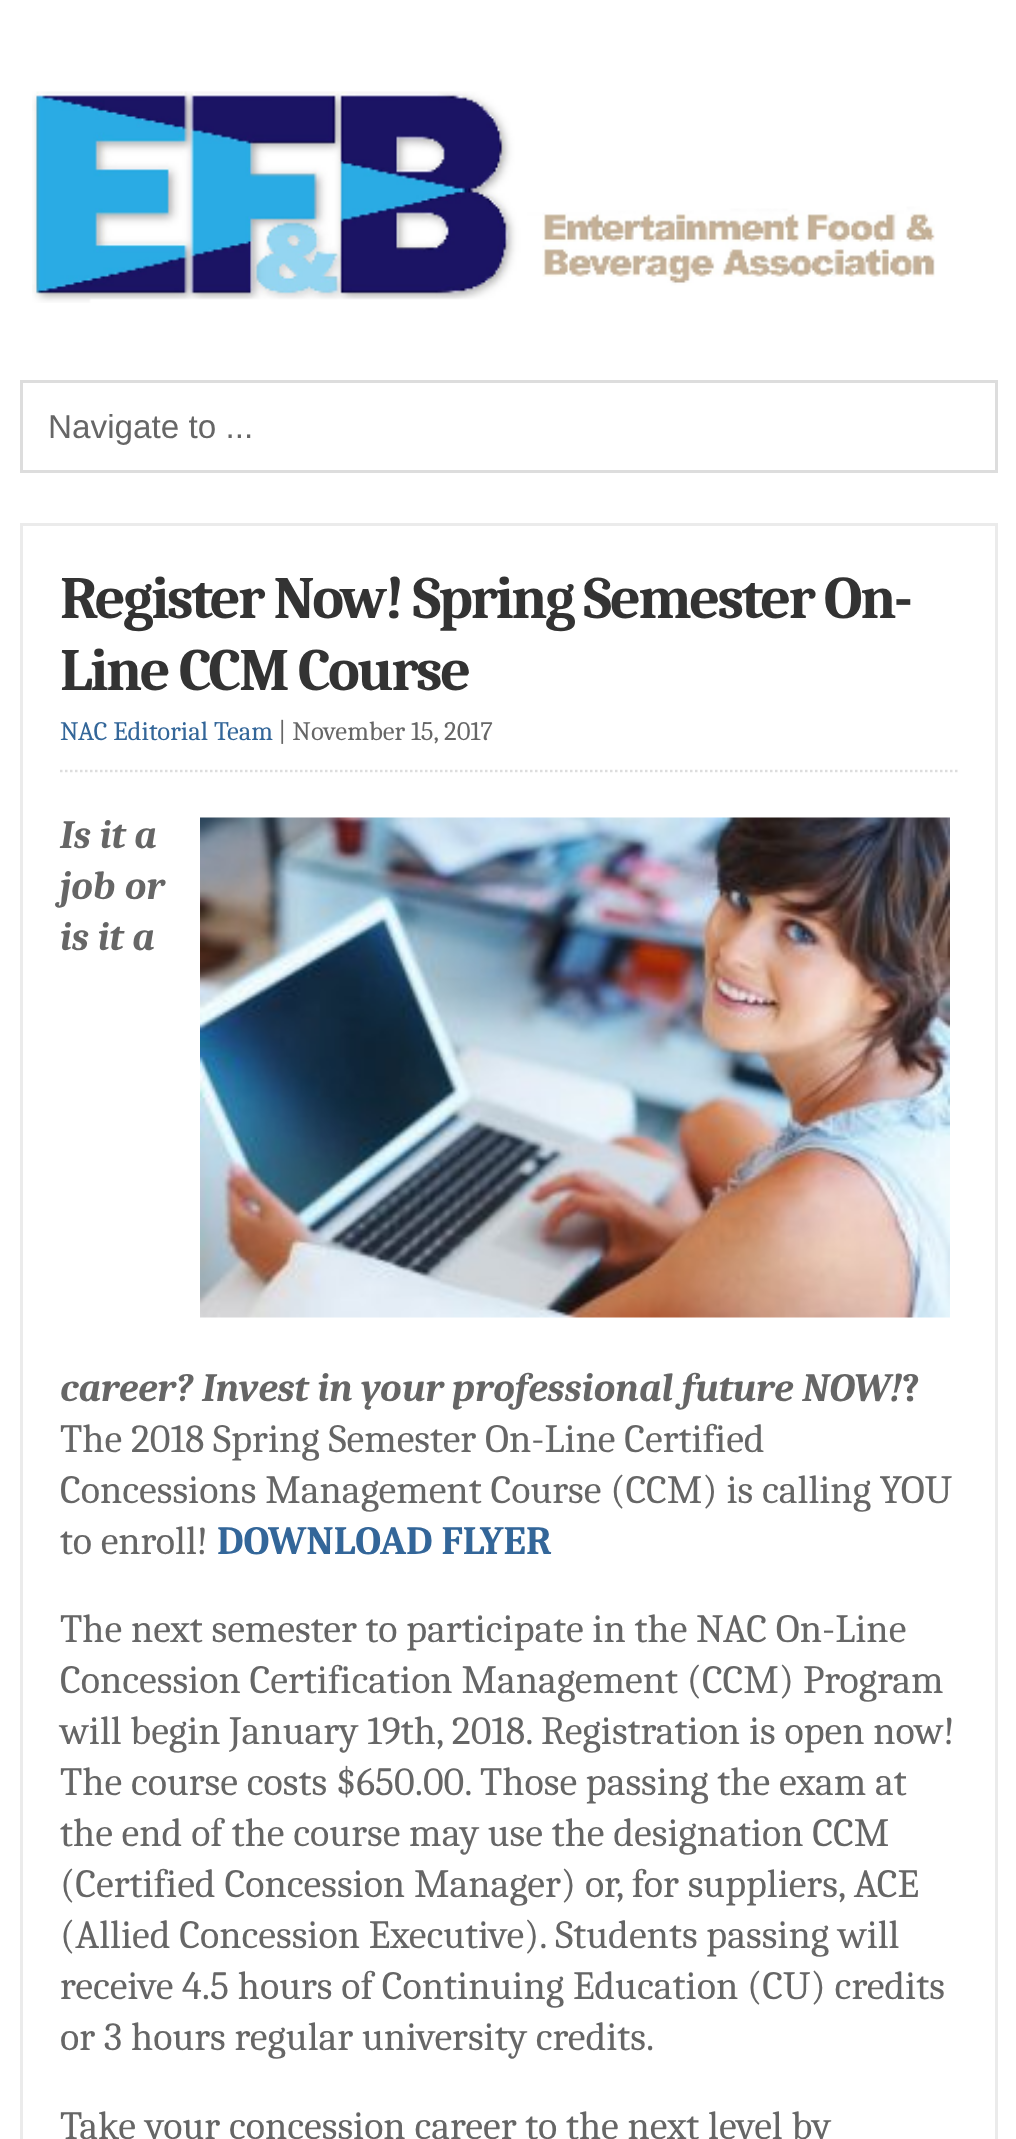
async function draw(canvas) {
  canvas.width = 1016;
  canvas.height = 2139;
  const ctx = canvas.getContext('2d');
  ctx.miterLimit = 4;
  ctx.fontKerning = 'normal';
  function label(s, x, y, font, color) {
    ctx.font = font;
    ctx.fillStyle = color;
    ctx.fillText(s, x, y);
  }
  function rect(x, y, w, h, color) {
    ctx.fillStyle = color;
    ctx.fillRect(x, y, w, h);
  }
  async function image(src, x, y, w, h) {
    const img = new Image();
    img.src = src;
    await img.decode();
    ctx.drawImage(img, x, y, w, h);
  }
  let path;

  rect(0, 0, 1016, 2139, '#fff');
  await image('assets/img1.png', 32, 91, 903, 212);
  ctx.strokeStyle = '#ddd';
  ctx.lineWidth = 3;
  ctx.strokeRect(21.5, 381.5, 975, 90);
  label('Navigate to ...', 48, 438, '33.25px Liberation Sans', '#666');
  ctx.strokeStyle = '#ebebeb';
  ctx.strokeRect(21.5, 524.5, 975, 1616);
  ctx.letterSpacing = '-2.5px';
  label('Register Now! Spring Semester On-', 60, 618, 'bold 60px Caladea', '#333');
  label('Line CCM Course', 60, 690, 'bold 60px Caladea', '#333');
  path = new Path2D('M60 771H957.5');
  ctx.strokeStyle = '#ddd';
  ctx.lineWidth = 2.5;
  ctx.setLineDash([2.5, 2.5]);
  ctx.stroke(path);
  ctx.letterSpacing = '0px';
  label('NAC Editorial Team', 60, 740, '26.75px Caladea', '#369');
  label('| November 15, 2017', 278, 740, '26.75px Caladea', '#666');
  label('Is it a', 60, 848, 'italic bold 40px Caladea', '#666');
  await image('assets/img2.png', 200, 817, 750, 501);
  label('job or', 60, 899, 'italic bold 40px Caladea', '#666');
  label('is it a', 60, 950, 'italic bold 40px Caladea', '#666');
  label('career? Invest in your professional future NOW!', 60, 1401, 'italic bold 40px Caladea', '#666');
  label('?', 902, 1401, 'bold 40px Caladea', '#666');
  label('The 2018 Spring Semester On-Line Certified', 60, 1452, '40px Caladea', '#666');
  label('Concessions Management Course (CCM) is calling YOU', 60, 1503, '40px Caladea', '#666');
  label('to enroll!', 60, 1554, '40px Caladea', '#666');
  label('DOWNLOAD FLYER', 217, 1554, 'bold 40px Caladea', '#369');
  label('The next semester to participate in the NAC On-Line', 60, 1642, '40px Caladea', '#666');
  label('Concession Certification Management (CCM) Program', 60, 1693, '40px Caladea', '#666');
  label('will begin January 19th, 2018. Registration is open now!', 60, 1744, '40px Caladea', '#666');
  label('The course costs $650.00. Those passing the exam at', 60, 1795, '40px Caladea', '#666');
  label('the end of the course may use the designation CCM', 60, 1846, '40px Caladea', '#666');
  label('(Certified Concession Manager) or, for suppliers, ACE', 60, 1897, '40px Caladea', '#666');
  label('(Allied Concession Executive). Students passing will', 60, 1948, '40px Caladea', '#666');
  label('receive 4.5 hours of Continuing Education (CU) credits', 60, 1999, '40px Caladea', '#666');
  label('or 3 hours regular university credits.', 60, 2050, '40px Caladea', '#666');
  label('Take your concession career to the next level by', 60, 2139, '40px Caladea', '#666');
}

draw(document.querySelector('canvas'));
